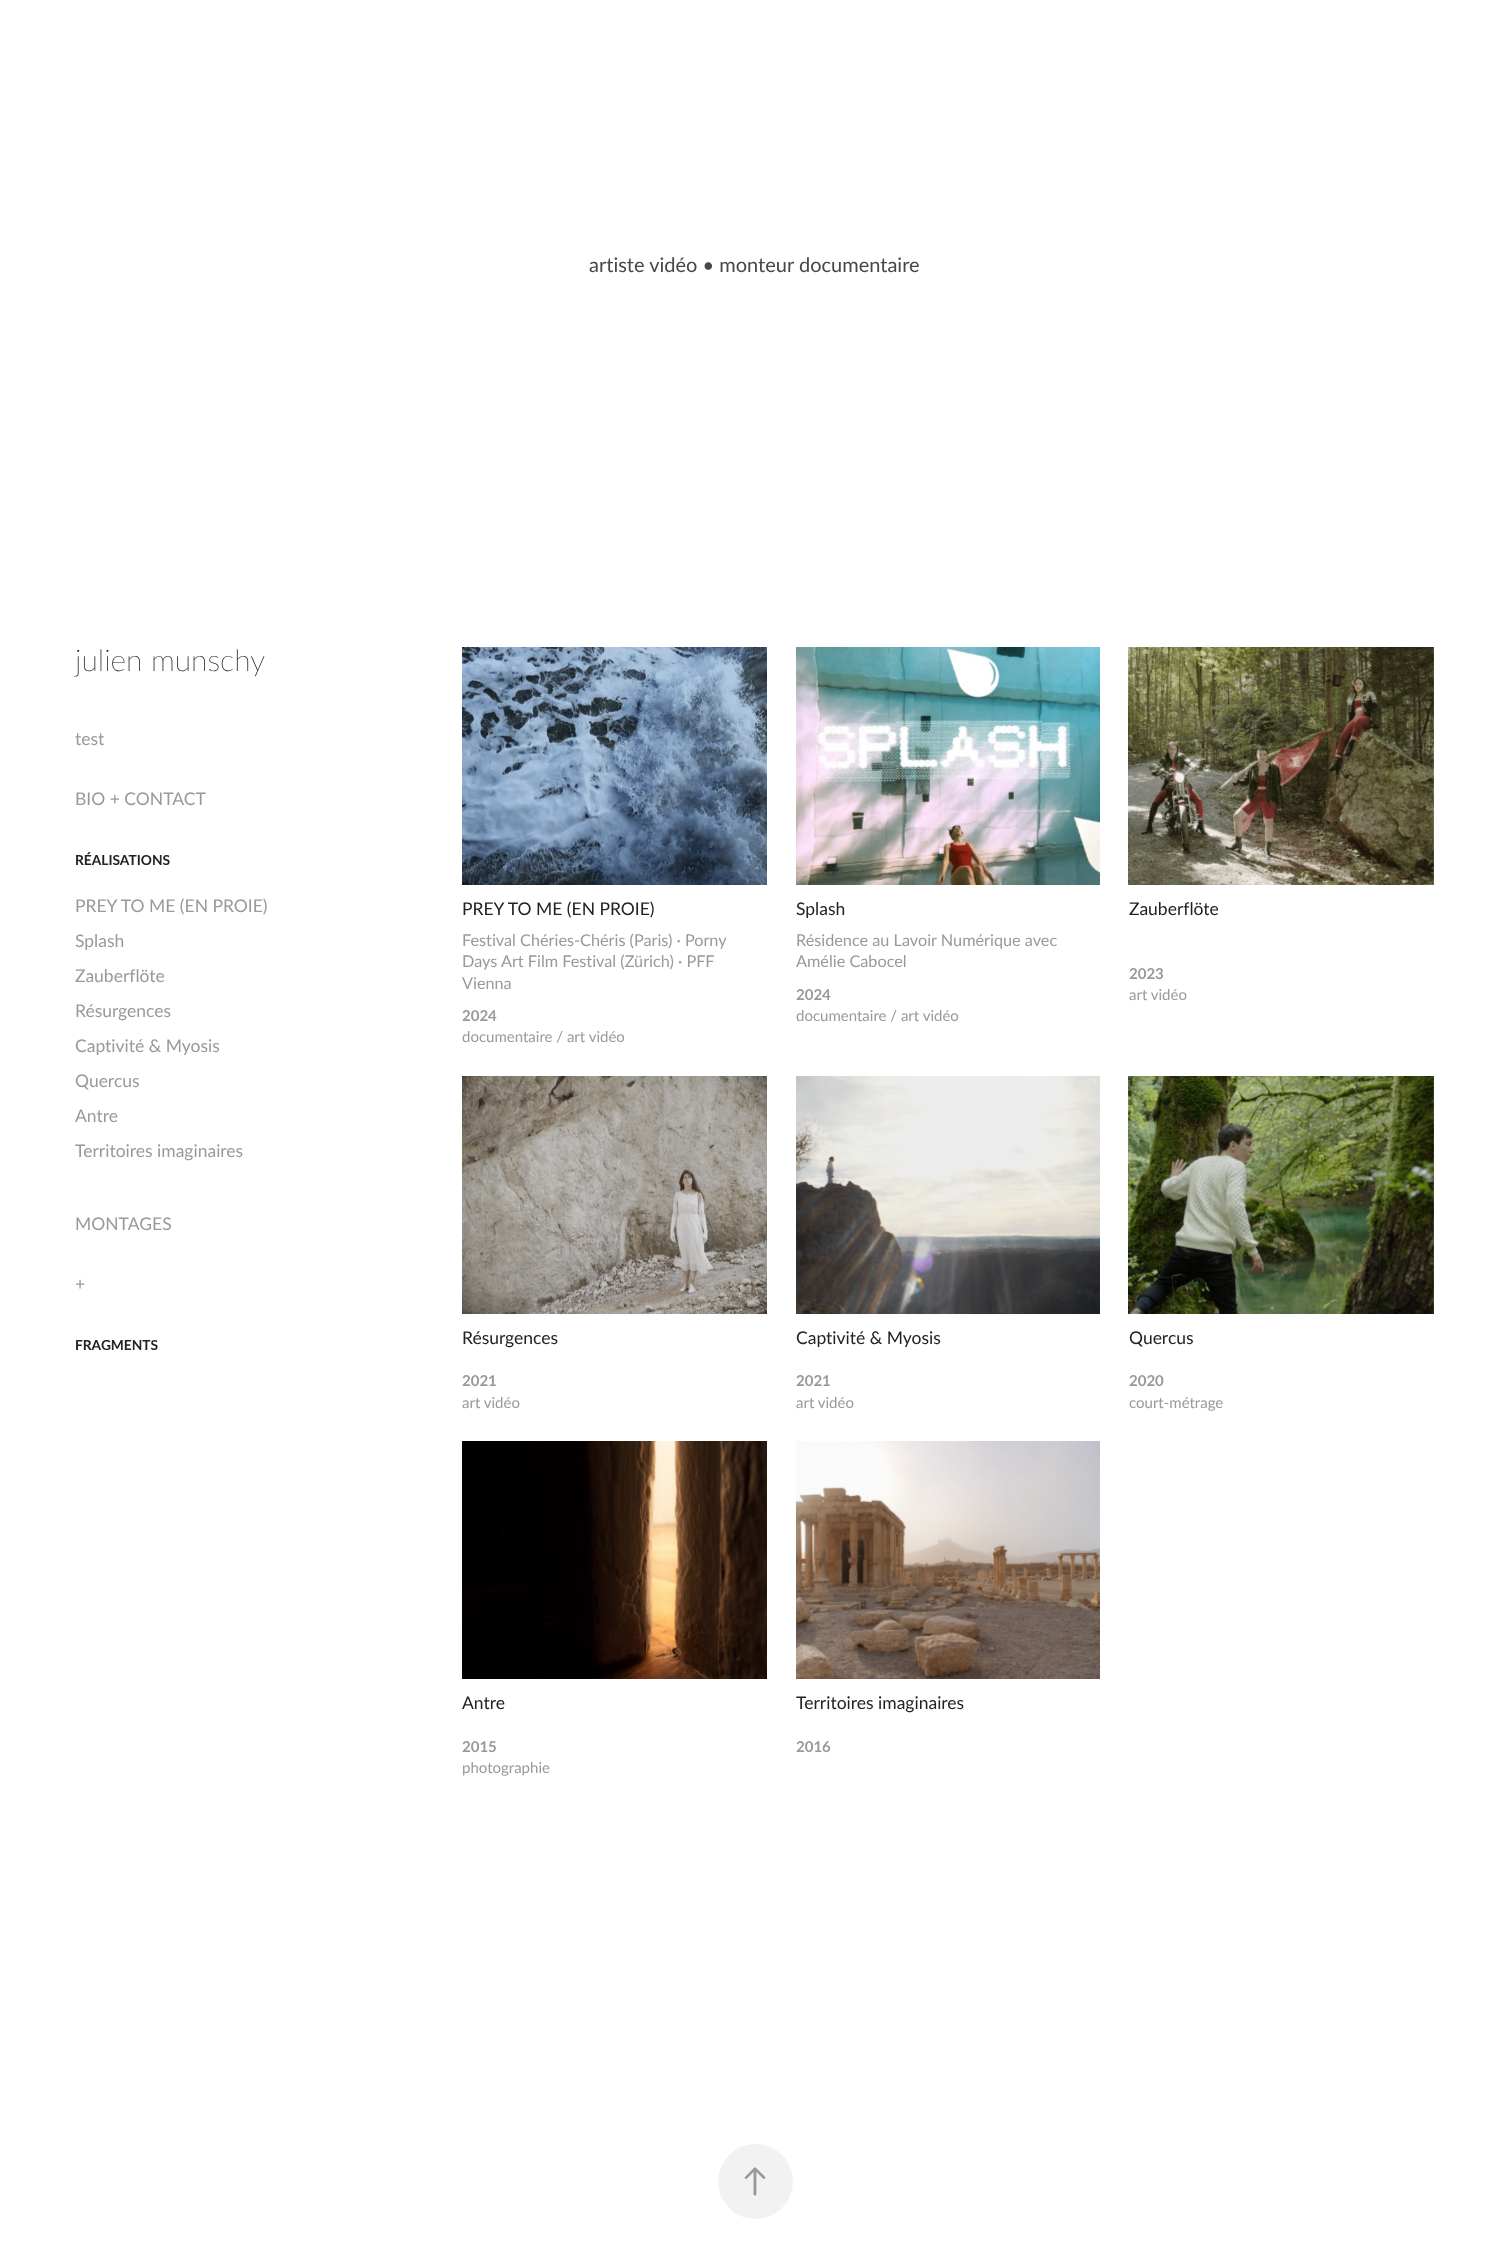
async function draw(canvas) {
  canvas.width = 1508;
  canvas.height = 2268;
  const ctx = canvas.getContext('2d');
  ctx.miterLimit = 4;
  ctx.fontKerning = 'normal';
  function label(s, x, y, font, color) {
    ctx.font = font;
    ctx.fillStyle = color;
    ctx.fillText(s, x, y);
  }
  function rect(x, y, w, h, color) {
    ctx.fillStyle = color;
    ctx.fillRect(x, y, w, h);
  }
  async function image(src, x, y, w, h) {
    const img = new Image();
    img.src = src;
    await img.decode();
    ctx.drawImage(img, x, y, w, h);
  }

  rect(0, 0, 1508, 2268, '#fff');
  label('artiste vidéo • monteur documentaire', 589, 272, '20px Lato', '#474747');
  label('julien munschy', 75, 671, '100 30px Lato', '#222');
  label('test', 75, 745, '17.5px Lato', '#999');
  label('BIO + CONTACT', 75, 805, '17.5px Lato', '#999');
  label('RÉALISATIONS', 75, 865, 'bold 13.75px Lato', '#222');
  label('PREY TO ME (EN PROIE)', 75, 912, '17.5px Lato', '#999');
  label('Splash', 75, 947, '17.5px Lato', '#999');
  label('Zauberflöte', 75, 982, '17.5px Lato', '#999');
  label('Résurgences', 75, 1017, '17.5px Lato', '#999');
  label('Captivité & Myosis', 75, 1052, '17.5px Lato', '#999');
  label('Quercus', 75, 1087, '17.5px Lato', '#999');
  label('Antre', 75, 1122, '17.5px Lato', '#999');
  label('Territoires imaginaires', 75, 1157, '17.5px Lato', '#999');
  label('MONTAGES', 75, 1230, '17.5px Lato', '#999');
  label('+', 75, 1290, '17.5px Lato', '#999');
  label('FRAGMENTS', 75, 1350, 'bold 13.75px Lato', '#222');
  await image('assets/img1.png', 462, 647, 305, 238);
  label('PREY TO ME (EN PROIE)', 462, 915, '17.5px Lato', '#222');
  label('Festival Chéries-Chéris (Paris) · Porny', 462, 946, '16.25px Lato', '#999');
  label('Days Art Film Festival (Zürich) · PFF', 462, 967, '16.25px Lato', '#999');
  label('Vienna', 462, 989, '16.25px Lato', '#999');
  label('2024', 462, 1021, 'bold 15px Lato', '#999');
  label('documentaire / art vidéo', 462, 1042, '15px Lato', '#999');
  await image('assets/img2.png', 796, 647, 304, 238);
  label('Splash', 796, 915, '17.5px Lato', '#222');
  label('Résidence au Lavoir Numérique avec', 796, 946, '16.25px Lato', '#999');
  label('Amélie Cabocel', 796, 967, '16.25px Lato', '#999');
  label('2024', 796, 1000, 'bold 15px Lato', '#999');
  label('documentaire / art vidéo', 796, 1021, '15px Lato', '#999');
  await image('assets/img3.png', 1128, 647, 306, 238);
  label('Zauberflöte', 1129, 915, '17.5px Lato', '#222');
  label('2023', 1129, 979, 'bold 15px Lato', '#999');
  label('art vidéo', 1129, 1000, '15px Lato', '#999');
  await image('assets/img4.png', 462, 1076, 305, 238);
  label('Résurgences', 462, 1344, '17.5px Lato', '#222');
  label('2021', 462, 1386, 'bold 15px Lato', '#999');
  label('art vidéo', 462, 1408, '15px Lato', '#999');
  await image('assets/img5.png', 796, 1076, 304, 238);
  label('Captivité & Myosis', 796, 1344, '17.5px Lato', '#222');
  label('2021', 796, 1386, 'bold 15px Lato', '#999');
  label('art vidéo', 796, 1408, '15px Lato', '#999');
  await image('assets/img6.png', 1128, 1076, 306, 238);
  label('Quercus', 1129, 1344, '17.5px Lato', '#222');
  label('2020', 1129, 1386, 'bold 15px Lato', '#999');
  label('court-métrage', 1129, 1408, '15px Lato', '#999');
  await image('assets/img7.png', 462, 1441, 305, 238);
  label('Antre', 462, 1709, '17.5px Lato', '#222');
  label('2015', 462, 1752, 'bold 15px Lato', '#999');
  label('photographie', 462, 1773, '15px Lato', '#999');
  await image('assets/img8.png', 796, 1441, 304, 238);
  label('Territoires imaginaires', 796, 1709, '17.5px Lato', '#222');
  label('2016', 796, 1752, 'bold 15px Lato', '#999');
  ctx.fillStyle = '#f2f2f2';
  ctx.beginPath();
  ctx.arc(755.5, 2181.5, 37.5, 0, 2 * Math.PI);
  ctx.fill();
  await image('assets/img9.png', 744, 2167, 22, 29);
}

draw(document.querySelector('canvas'));
